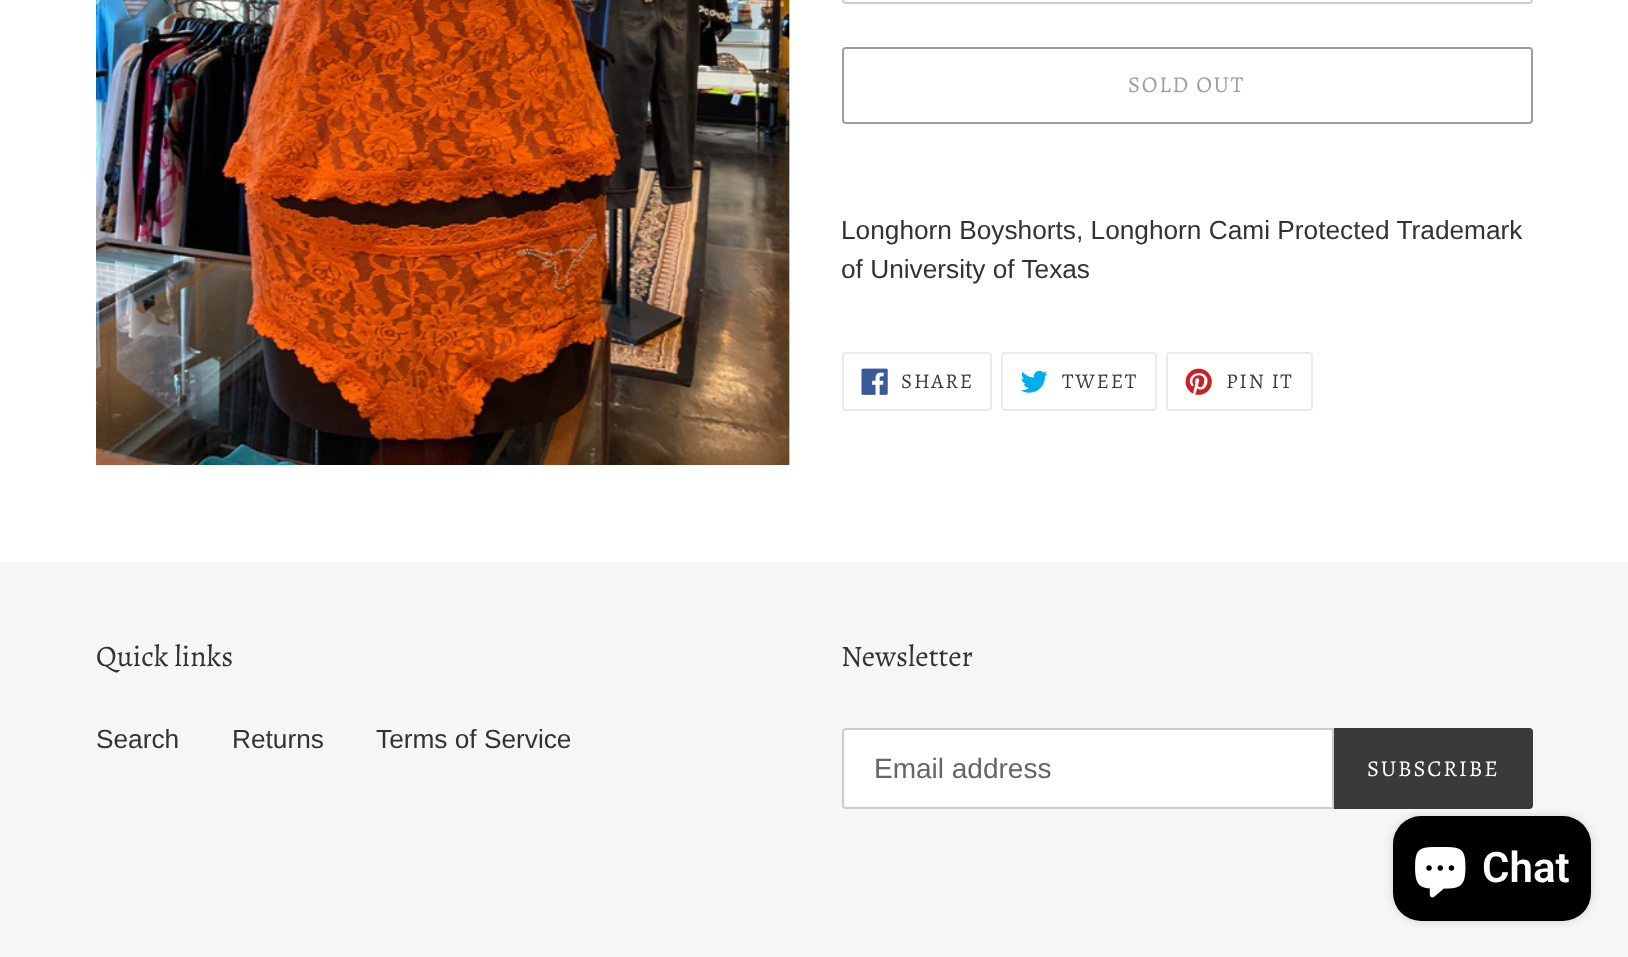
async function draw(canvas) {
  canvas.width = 1628;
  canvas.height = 957;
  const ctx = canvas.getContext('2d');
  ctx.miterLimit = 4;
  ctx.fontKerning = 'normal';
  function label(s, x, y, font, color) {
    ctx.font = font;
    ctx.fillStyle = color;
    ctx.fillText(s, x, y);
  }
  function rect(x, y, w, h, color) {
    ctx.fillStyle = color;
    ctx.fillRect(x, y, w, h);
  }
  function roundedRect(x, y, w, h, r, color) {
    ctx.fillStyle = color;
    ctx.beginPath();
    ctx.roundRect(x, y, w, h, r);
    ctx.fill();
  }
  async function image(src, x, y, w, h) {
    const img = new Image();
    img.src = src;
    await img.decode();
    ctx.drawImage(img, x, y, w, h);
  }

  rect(0, 0, 1628, 957, '#fff');
  await image('assets/img1.png', 96, 0, 694, 465);
  ctx.beginPath();
  ctx.roundRect(843, -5, 689, 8, 3);
  ctx.strokeStyle = '#ccc';
  ctx.lineWidth = 2;
  ctx.stroke();
  ctx.beginPath();
  ctx.roundRect(843, 48, 689, 75, 3);
  ctx.strokeStyle = '#9d9d9d';
  ctx.stroke();
  ctx.letterSpacing = '1.75px';
  label('SOLD OUT', 1128, 92, '22.75px Alegreya', '#9d9d9d');
  ctx.letterSpacing = '0px';
  label('Longhorn Boyshorts, Longhorn Cami Protected Trademark', 841, 239, '26.25px Liberation Sans', '#333232');
  label('of University of Texas', 841, 278, '26.25px Liberation Sans', '#333232');
  ctx.beginPath();
  ctx.roundRect(843, 353, 148, 57, 3);
  ctx.strokeStyle = '#ebebeb';
  ctx.stroke();
  await image('assets/img2.png', 861, 368, 27, 27);
  ctx.letterSpacing = '1.75px';
  label('SHARE', 901, 388, '21px Alegreya', '#3a3a3a');
  ctx.beginPath();
  ctx.roundRect(1002, 353, 154, 57, 3);
  ctx.stroke();
  await image('assets/img3.png', 1020, 370, 28, 23);
  label('TWEET', 1062, 388, '21px Alegreya', '#3a3a3a');
  ctx.beginPath();
  ctx.roundRect(1167, 353, 145, 57, 3);
  ctx.stroke();
  await image('assets/img4.png', 1185, 368, 27, 27);
  label('PIN IT', 1226, 388, '21px Alegreya', '#3a3a3a');
  rect(0, 562, 1628, 395, '#f6f6f6');
  ctx.letterSpacing = '0px';
  label('Quick links', 96, 666, '29.75px Alegreya', '#333232');
  label('Search', 96, 748, '26.25px Liberation Sans', '#333232');
  label('Returns', 232, 748, '26.25px Liberation Sans', '#333232');
  label('Terms of Service', 376, 748, '26.25px Liberation Sans', '#333232');
  label('Newsletter', 841, 666, '29.75px Alegreya', '#333232');
  ctx.fillStyle = '#fff';
  ctx.beginPath();
  ctx.roundRect(843, 729, 490, 79, [3, 0, 0, 3]);
  ctx.fill();
  ctx.strokeStyle = '#ccc';
  ctx.stroke();
  label('Email address', 874, 778, '28px Liberation Sans', '#666');
  ctx.fillStyle = '#3a3a3a';
  ctx.beginPath();
  ctx.roundRect(1334, 728, 199, 81, [0, 4, 4, 0]);
  ctx.fill();
  ctx.letterSpacing = '1.75px';
  label('SUBSCRIBE', 1367, 776, '22.75px Alegreya', '#fff');
  ctx.fillStyle = '#00000026';
  ctx.filter = 'blur(4.5px)';
  ctx.beginPath();
  ctx.roundRect(1393, 816, 198, 105, 28);
  ctx.fill();
  ctx.filter = 'none';
  roundedRect(1393, 816, 198, 105, 28, '#000');
  await image('assets/img5.png', 1415, 847, 51, 51);
  ctx.letterSpacing = '0px';
  label('Chat', 1482, 882, '600 42px Roboto', '#fff');
}

draw(document.querySelector('canvas'));
